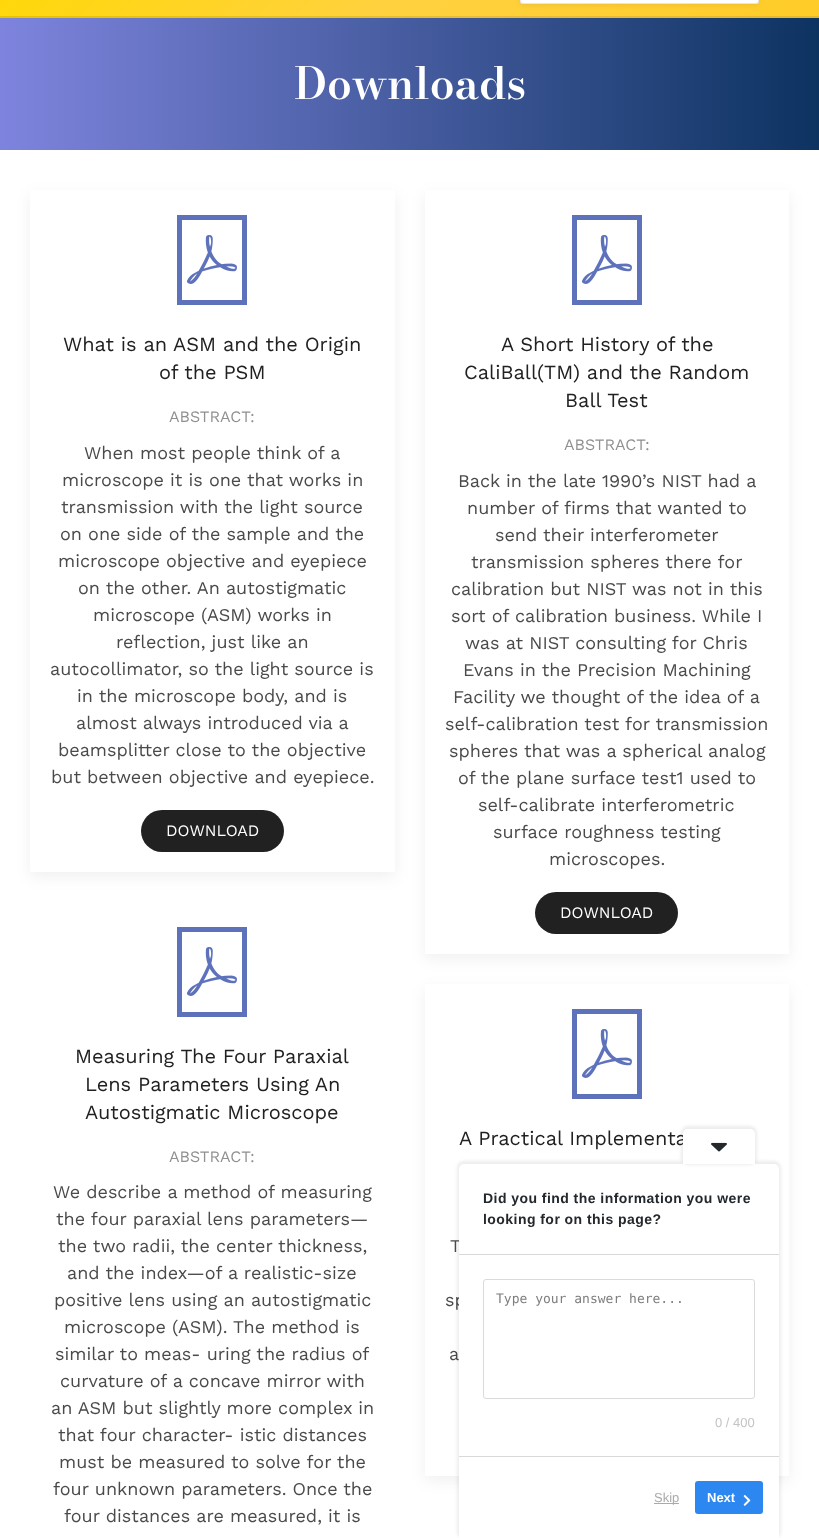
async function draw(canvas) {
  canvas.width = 819;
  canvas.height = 1538;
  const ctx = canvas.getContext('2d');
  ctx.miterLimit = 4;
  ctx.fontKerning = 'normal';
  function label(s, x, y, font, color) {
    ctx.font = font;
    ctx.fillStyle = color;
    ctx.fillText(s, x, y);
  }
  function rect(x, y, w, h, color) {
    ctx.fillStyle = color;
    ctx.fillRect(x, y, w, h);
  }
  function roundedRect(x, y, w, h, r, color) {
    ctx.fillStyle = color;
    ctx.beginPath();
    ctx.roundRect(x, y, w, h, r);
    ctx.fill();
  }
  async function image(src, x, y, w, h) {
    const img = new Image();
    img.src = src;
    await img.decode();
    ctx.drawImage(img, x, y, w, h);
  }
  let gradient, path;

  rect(0, 0, 819, 1538, '#fff');
  gradient = ctx.createLinearGradient(191, -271, 668, 207);
  gradient.addColorStop(0, '#ffd900');
  gradient.addColorStop(0.5, '#ffd140');
  gradient.addColorStop(1, '#ffcc25');
  ctx.fillStyle = gradient;
  ctx.fillRect(0, 0, 819, 16);
  gradient = ctx.createLinearGradient(191, -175, 668, 303);
  gradient.addColorStop(0, '#e6c300');
  gradient.addColorStop(0.5, '#e6bc3a');
  gradient.addColorStop(1, '#e6b821');
  ctx.fillStyle = gradient;
  ctx.fillRect(0, 16, 819, 2);
  ctx.fillStyle = '#0000000d';
  ctx.filter = 'blur(2px)';
  ctx.beginPath();
  ctx.roundRect(520, -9, 239, 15, 3);
  ctx.fill();
  ctx.filter = 'none';
  roundedRect(520, -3, 239, 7, 3, '#fff');
  ctx.beginPath();
  ctx.roundRect(520.5, -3.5, 238, 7, 2.5);
  ctx.strokeStyle = '#0000001a';
  ctx.stroke();
  gradient = ctx.createLinearGradient(0, 84, 819, 84);
  gradient.addColorStop(0, '#7e84dd');
  gradient.addColorStop(1, '#0d3361');
  ctx.fillStyle = gradient;
  ctx.fillRect(0, 18, 819, 132);
  label('Downloads', 294, 99, '600 44px Bodoni Moda', '#fff');
  ctx.save();
  path = new Path2D('M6 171H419V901H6ZM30 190H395V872H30Z');
  ctx.clip(path, 'evenodd');
  ctx.fillStyle = '#0000000f';
  ctx.filter = 'blur(7.5px)';
  ctx.beginPath();
  ctx.rect(30, 195, 365, 682);
  ctx.fill();
  ctx.filter = 'none';
  ctx.restore();
  await image('assets/img1.png', 177, 215, 70, 90);
  label('What is an ASM and the Origin', 63, 351, '20px Work Sans', '#212121');
  label('of the PSM', 159, 379, '20px Work Sans', '#212121');
  label('ABSTRACT:', 169, 422, '16px Work Sans', '#909090');
  label('When most people think of a', 84, 459, '18px Work Sans', '#4a4a4a');
  label('microscope it is one that works in', 62, 486, '18px Work Sans', '#4a4a4a');
  label('transmission with the light source', 61, 513, '18px Work Sans', '#4a4a4a');
  label('on one side of the sample and the', 60, 540, '18px Work Sans', '#4a4a4a');
  label('microscope objective and eyepiece', 58, 567, '18px Work Sans', '#4a4a4a');
  label('on the other. An autostigmatic', 78, 594, '18px Work Sans', '#4a4a4a');
  label('microscope (ASM) works in', 93, 621, '18px Work Sans', '#4a4a4a');
  label('reflection, just like an', 116, 648, '18px Work Sans', '#4a4a4a');
  label('autocollimator, so the light source is', 50, 675, '18px Work Sans', '#4a4a4a');
  label('in the microscope body, and is', 77, 702, '18px Work Sans', '#4a4a4a');
  label('almost always introduced via a', 76, 729, '18px Work Sans', '#4a4a4a');
  label('beamsplitter close to the objective', 58, 756, '18px Work Sans', '#4a4a4a');
  label('but between objective and eyepiece.', 51, 783, '18px Work Sans', '#4a4a4a');
  roundedRect(141, 810, 143, 42, 21, '#212121');
  label('DOWNLOAD', 166, 836, '16px Work Sans', '#fff');
  ctx.save();
  path = new Path2D('M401 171H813V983H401ZM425 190H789V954H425Z');
  ctx.clip(path, 'evenodd');
  ctx.fillStyle = '#0000000f';
  ctx.filter = 'blur(7.5px)';
  ctx.beginPath();
  ctx.rect(425, 195, 364, 764);
  ctx.fill();
  ctx.filter = 'none';
  ctx.restore();
  await image('assets/img1.png', 572, 215, 70, 90);
  label('A Short History of the', 501, 351, '20px Work Sans', '#212121');
  label('CaliBall(TM) and the Random', 464, 379, '20px Work Sans', '#212121');
  label('Ball Test', 565, 407, '20px Work Sans', '#212121');
  label('ABSTRACT:', 564, 450, '16px Work Sans', '#909090');
  label('Back in the late 1990’s NIST had a', 458, 487, '18px Work Sans', '#4a4a4a');
  label('number of firms that wanted to', 467, 514, '18px Work Sans', '#4a4a4a');
  label('send their interferometer', 495, 541, '18px Work Sans', '#4a4a4a');
  label('transmission spheres there for', 471, 568, '18px Work Sans', '#4a4a4a');
  label('calibration but NIST was not in this', 451, 595, '18px Work Sans', '#4a4a4a');
  label('sort of calibration business. While I', 451, 622, '18px Work Sans', '#4a4a4a');
  label('was at NIST consulting for Chris', 465, 649, '18px Work Sans', '#4a4a4a');
  label('Evans in the Precision Machining', 463, 676, '18px Work Sans', '#4a4a4a');
  label('Facility we thought of the idea of a', 453, 703, '18px Work Sans', '#4a4a4a');
  label('self-calibration test for transmission', 445, 730, '18px Work Sans', '#4a4a4a');
  label('spheres that was a spherical analog', 449, 757, '18px Work Sans', '#4a4a4a');
  label('of the plane surface test1 used to', 458, 784, '18px Work Sans', '#4a4a4a');
  label('self-calibrate interferometric', 478, 811, '18px Work Sans', '#4a4a4a');
  label('surface roughness testing', 493, 838, '18px Work Sans', '#4a4a4a');
  label('microscopes.', 549, 865, '18px Work Sans', '#4a4a4a');
  roundedRect(535, 892, 143, 42, 21, '#212121');
  label('DOWNLOAD', 560, 918, '16px Work Sans', '#fff');
  await image('assets/img1.png', 177, 927, 70, 90);
  label('Measuring The Four Paraxial', 75, 1063, '20px Work Sans', '#212121');
  label('Lens Parameters Using An', 85, 1091, '20px Work Sans', '#212121');
  label('Autostigmatic Microscope', 85, 1119, '20px Work Sans', '#212121');
  label('ABSTRACT:', 169, 1162, '16px Work Sans', '#909090');
  label('We describe a method of measuring', 53, 1198, '18px Work Sans', '#4a4a4a');
  label('the four paraxial lens parameters—', 56, 1225, '18px Work Sans', '#4a4a4a');
  label('the two radii, the center thickness,', 58, 1252, '18px Work Sans', '#4a4a4a');
  label('and the index—of a realistic-size', 67, 1279, '18px Work Sans', '#4a4a4a');
  label('positive lens using an autostigmatic', 54, 1306, '18px Work Sans', '#4a4a4a');
  label('microscope (ASM). The method is', 64, 1333, '18px Work Sans', '#4a4a4a');
  label('similar to meas- uring the radius of', 55, 1360, '18px Work Sans', '#4a4a4a');
  label('curvature of a concave mirror with', 60, 1387, '18px Work Sans', '#4a4a4a');
  label('an ASM but slightly more complex in', 51, 1414, '18px Work Sans', '#4a4a4a');
  label('that four character- istic distances', 58, 1441, '18px Work Sans', '#4a4a4a');
  label('must be measured to solve for the', 59, 1468, '18px Work Sans', '#4a4a4a');
  label('four unknown parameters. Once the', 53, 1495, '18px Work Sans', '#4a4a4a');
  label('four distances are measured, it is', 64, 1522, '18px Work Sans', '#4a4a4a');
  ctx.save();
  path = new Path2D('M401 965H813V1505H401ZM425 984H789V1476H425Z');
  ctx.clip(path, 'evenodd');
  ctx.fillStyle = '#0000000f';
  ctx.filter = 'blur(7.5px)';
  ctx.beginPath();
  ctx.rect(425, 989, 364, 492);
  ctx.fill();
  ctx.filter = 'none';
  ctx.restore();
  await image('assets/img1.png', 572, 1009, 70, 90);
  label('A Practical Implementa', 459, 1145, '20px Work Sans', '#212121');
  label('T', 450, 1252, '18px Work Sans', '#4a4a4a');
  label('sp', 445, 1306, '18px Work Sans', '#4a4a4a');
  label('a', 449, 1360, '18px Work Sans', '#4a4a4a');
  ctx.fillStyle = '#00000012';
  ctx.filter = 'blur(1.5px)';
  ctx.beginPath();
  ctx.roundRect(457, 1161, 324, 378, 7);
  ctx.fill();
  ctx.filter = 'none';
  ctx.fillStyle = '#fff';
  ctx.beginPath();
  ctx.roundRect(459, 1164, 320, 374, [5, 5, 0, 0]);
  ctx.fill();
  ctx.fillStyle = '#00000012';
  ctx.filter = 'blur(1.5px)';
  ctx.beginPath();
  ctx.roundRect(681, 1126, 76, 39, 7);
  ctx.fill();
  ctx.filter = 'none';
  ctx.fillStyle = '#fff';
  path = new Path2D('M688 1129H750C753 1129 755 1131 755 1134V1164H683V1134C683 1131 685 1129 688 1129Z');
  ctx.fill(path);
  await image('assets/img2.png', 711, 1142, 16, 10);
  ctx.letterSpacing = '0.45px';
  label('Did you find the information you were', 483, 1203, 'bold 14px Liberation Sans', '#23282d');
  label('looking for on this page?', 483, 1224, 'bold 14px Liberation Sans', '#23282d');
  rect(459, 1254, 320, 1, '#d9d9d9');
  rect(459, 1456, 320, 1, '#d9d9d9');
  ctx.beginPath();
  ctx.roundRect(483.5, 1279.5, 271, 119, 2.5);
  ctx.strokeStyle = '#dadada';
  ctx.stroke();
  ctx.letterSpacing = '0px';
  label('Type your answer here...', 496, 1303, '13px DejaVu Sans Mono', '#7e7e7e');
  label('0 / 400', 715, 1427, '13px Liberation Sans', '#c4c4c4');
  rect(654, 1503, 25, 1, '#aaa');
  label('Skip', 654, 1502, '13px Liberation Sans', '#aaa');
  roundedRect(695, 1481, 68, 33, 3, '#2d87f1');
  label('Next', 707, 1502, 'bold 13px Liberation Sans', '#fff');
  await image('assets/img3.png', 743, 1495, 8, 11);
}

draw(document.querySelector('canvas'));
